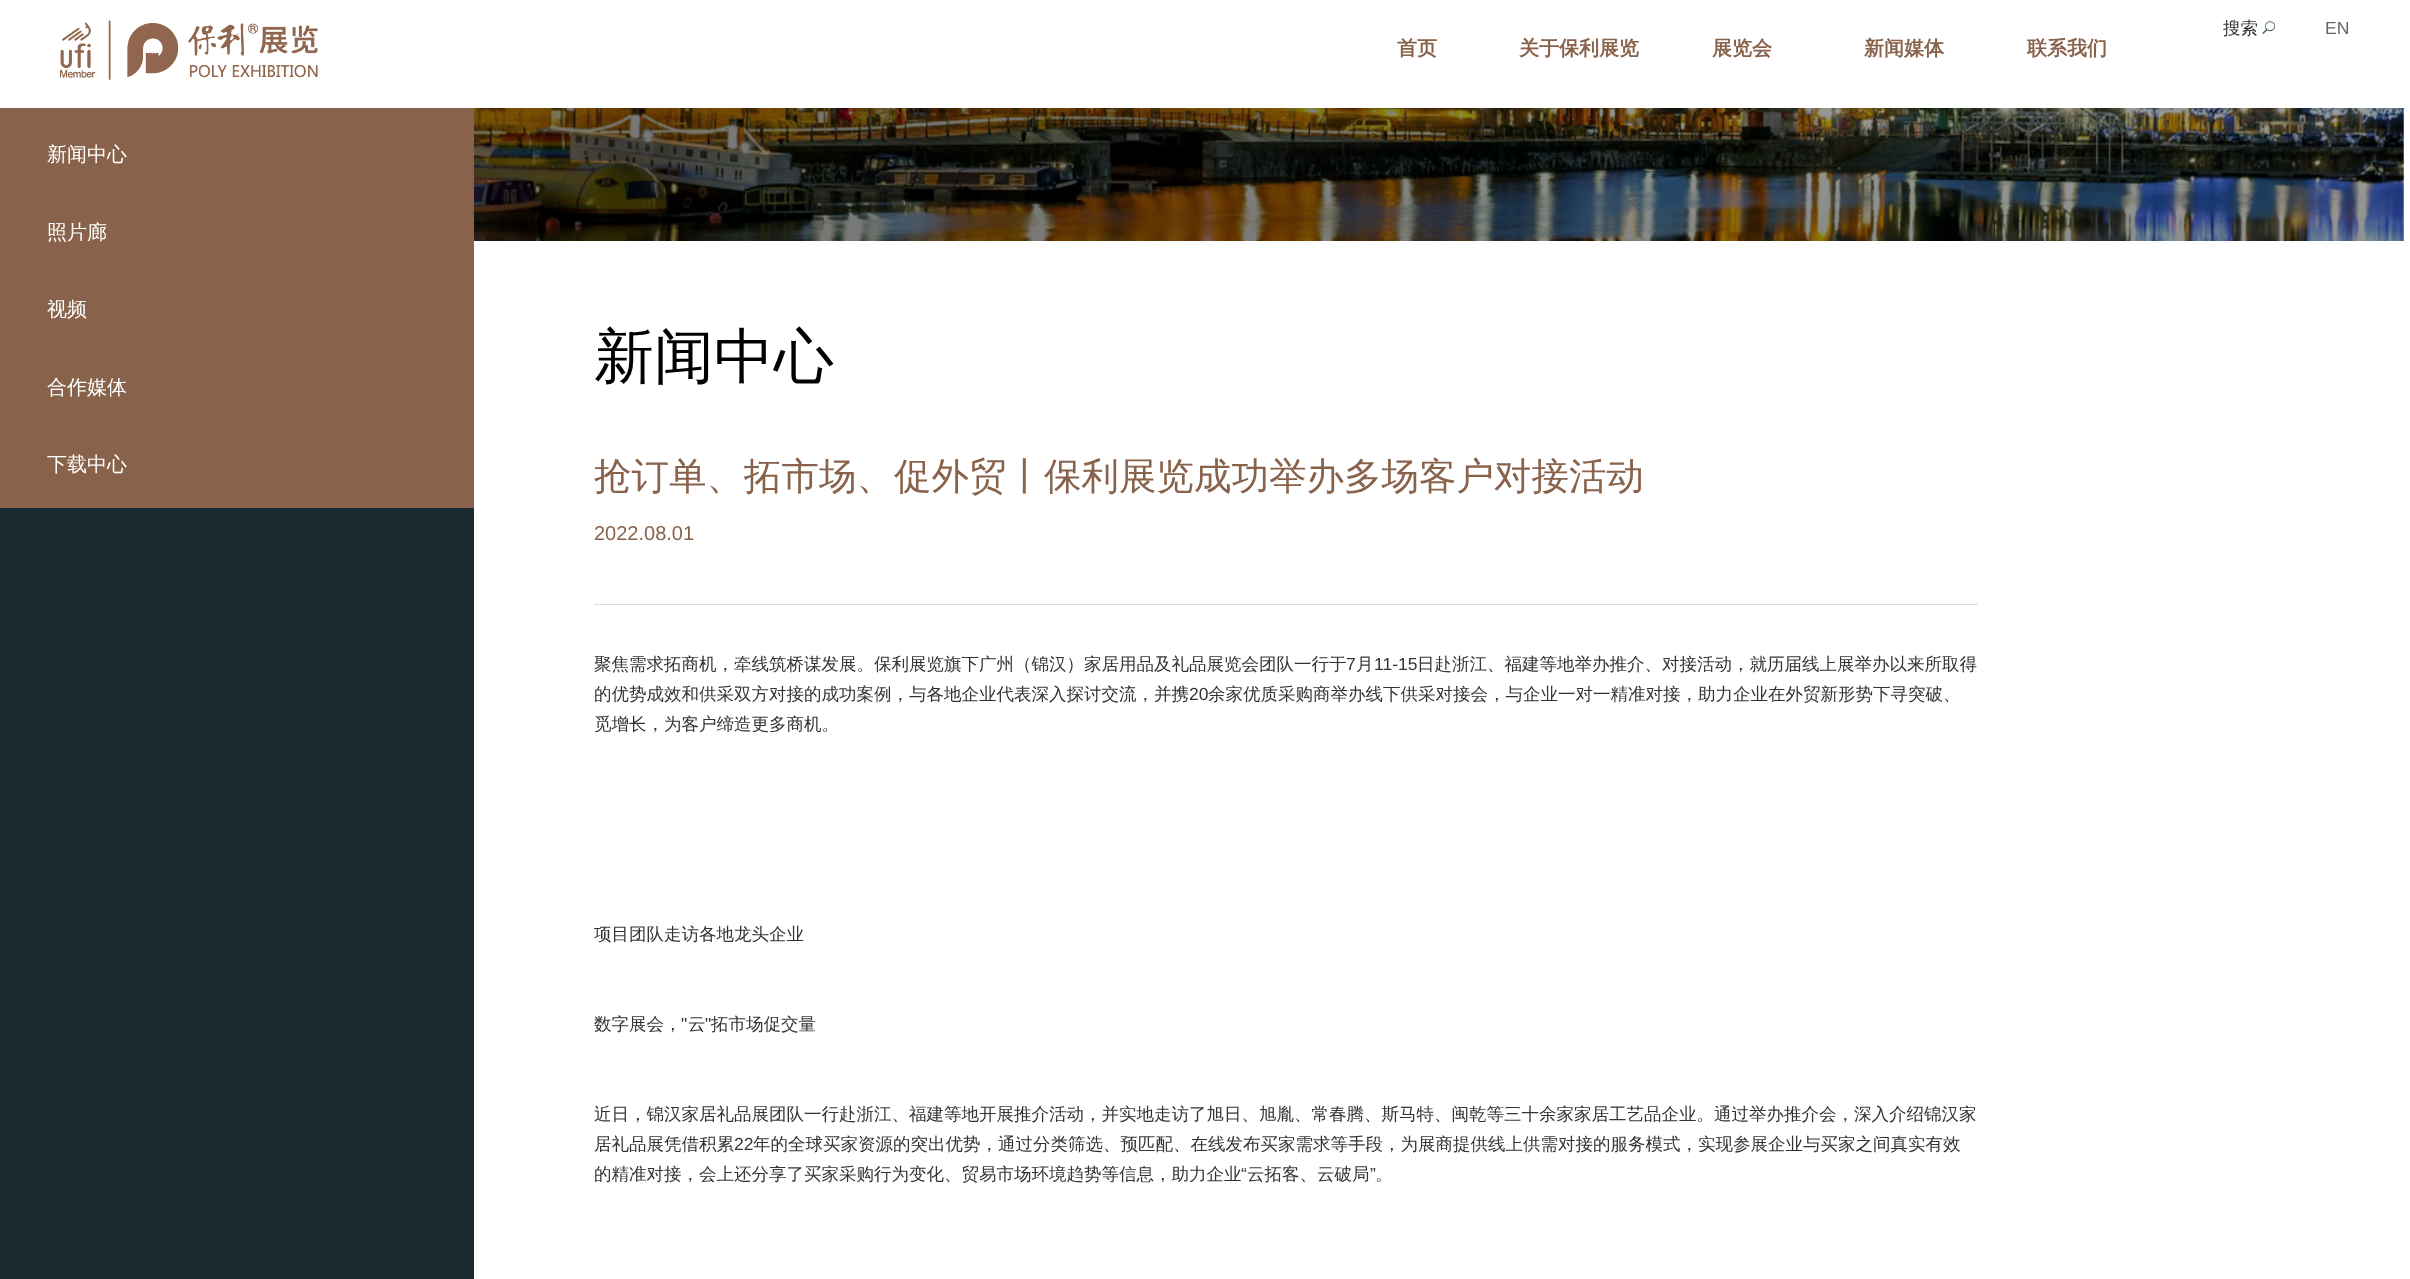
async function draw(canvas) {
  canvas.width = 2410;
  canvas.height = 1279;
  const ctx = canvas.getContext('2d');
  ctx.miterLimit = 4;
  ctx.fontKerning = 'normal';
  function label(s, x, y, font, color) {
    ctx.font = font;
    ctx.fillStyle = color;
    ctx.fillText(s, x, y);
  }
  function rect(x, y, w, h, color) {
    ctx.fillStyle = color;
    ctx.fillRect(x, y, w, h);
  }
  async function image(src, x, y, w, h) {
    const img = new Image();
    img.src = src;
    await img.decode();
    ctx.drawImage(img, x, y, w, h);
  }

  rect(0, 0, 2410, 1279, '#fff');
  await image('assets/img1.png', 60, 20, 258, 60);
  label('搜索', 2223, 34, '500 17.5px WenQuanYi Zen Hei', '#333');
  await image('assets/img2.png', 2262, 21, 13, 13);
  label('EN', 2325, 34, '17.5px Liberation Sans', '#666');
  label('首页', 1397, 55, 'bold 20px WenQuanYi Zen Hei', '#88624a');
  label('关于保利展览', 1519, 55, 'bold 20px WenQuanYi Zen Hei', '#88624a');
  label('展览会', 1712, 55, 'bold 20px WenQuanYi Zen Hei', '#88624a');
  label('新闻媒体', 1864, 55, 'bold 20px WenQuanYi Zen Hei', '#88624a');
  label('联系我们', 2027, 55, 'bold 20px WenQuanYi Zen Hei', '#88624a');
  rect(0, 508, 474, 771, '#1a2930');
  rect(0, 108, 474, 400, '#88624a');
  label('新闻中心', 47, 161, '500 20px WenQuanYi Zen Hei', '#fff');
  label('照片廊', 47, 239, '500 20px WenQuanYi Zen Hei', '#fff');
  label('视频', 47, 316, '500 20px WenQuanYi Zen Hei', '#fff');
  label('合作媒体', 47, 394, '500 20px WenQuanYi Zen Hei', '#fff');
  label('下载中心', 47, 471, '500 20px WenQuanYi Zen Hei', '#fff');
  await image('assets/img3.png', 474, 108, 1930, 133);
  label('新闻中心', 594, 377, '500 60px WenQuanYi Zen Hei', '#000');
  label('抢订单、拓市场、促外贸丨保利展览成功举办多场客户对接活动', 594, 489, '500 37.5px WenQuanYi Zen Hei', '#88624a');
  label('2022.08.01', 594, 540, '20px Liberation Sans', '#88624a');
  rect(594, 604, 1384, 1, '#dcdcdc');
  label('聚焦需求拓商机，牵线筑桥谋发展。保利展览旗下广州（锦汉）家居用品及礼品展览会团队一行于', 594, 670, '500 17.5px WenQuanYi Zen Hei', '#333');
  label('7', 1346, 670, '17.5px Liberation Sans', '#333');
  label('月', 1356, 670, '500 17.5px WenQuanYi Zen Hei', '#333');
  label('11-15', 1374, 670, '17.5px Liberation Sans', '#333');
  label('日赴浙江、福建等地举办推介、对接活动，就历届线上展举办以来所取得', 1417, 670, '500 17.5px WenQuanYi Zen Hei', '#333');
  label('的优势成效和供采双方对接的成功案例，与各地企业代表深入探讨交流，并携', 594, 700, '500 17.5px WenQuanYi Zen Hei', '#333');
  label('20', 1189, 700, '17.5px Liberation Sans', '#333');
  label('余家优质采购商举办线下供采对接会，与企业一对一精准对接，助力企业在外贸新形势下寻突破、', 1208, 700, '500 17.5px WenQuanYi Zen Hei', '#333');
  label('觅增长，为客户缔造更多商机。', 594, 730, '500 17.5px WenQuanYi Zen Hei', '#333');
  label('项目团队走访各地龙头企业', 594, 940, '500 17.5px WenQuanYi Zen Hei', '#333');
  label('数字展会，', 594, 1030, '500 17.5px WenQuanYi Zen Hei', '#333');
  label('"', 681, 1030, '17.5px Liberation Sans', '#333');
  label('云', 688, 1030, '500 17.5px WenQuanYi Zen Hei', '#333');
  label('"', 705, 1030, '17.5px Liberation Sans', '#333');
  label('拓市场促交量', 711, 1030, '500 17.5px WenQuanYi Zen Hei', '#333');
  label('近日，锦汉家居礼品展团队一行赴浙江、福建等地开展推介活动，并实地走访了旭日、旭胤、常春腾、斯马特、闽乾等三十余家家居工艺品企业。通过举办推介会，深入介绍锦汉家', 594, 1120, '500 17.5px WenQuanYi Zen Hei', '#333');
  label('居礼品展凭借积累', 594, 1150, '500 17.5px WenQuanYi Zen Hei', '#333');
  label('22', 734, 1150, '17.5px Liberation Sans', '#333');
  label('年的全球买家资源的突出优势，通过分类筛选、预匹配、在线发布买家需求等手段，为展商提供线上供需对接的服务模式，实现参展企业与买家之间真实有效', 753, 1150, '500 17.5px WenQuanYi Zen Hei', '#333');
  label('的精准对接，会上还分享了买家采购行为变化、贸易市场环境趋势等信息，助力企业', 594, 1180, '500 17.5px WenQuanYi Zen Hei', '#333');
  label('“', 1241, 1180, '17.5px Liberation Sans', '#333');
  label('云拓客、云破局', 1247, 1180, '500 17.5px WenQuanYi Zen Hei', '#333');
  label('”', 1370, 1180, '17.5px Liberation Sans', '#333');
  label('。', 1375, 1180, '500 17.5px WenQuanYi Zen Hei', '#333');
}

draw(document.querySelector('canvas'));
